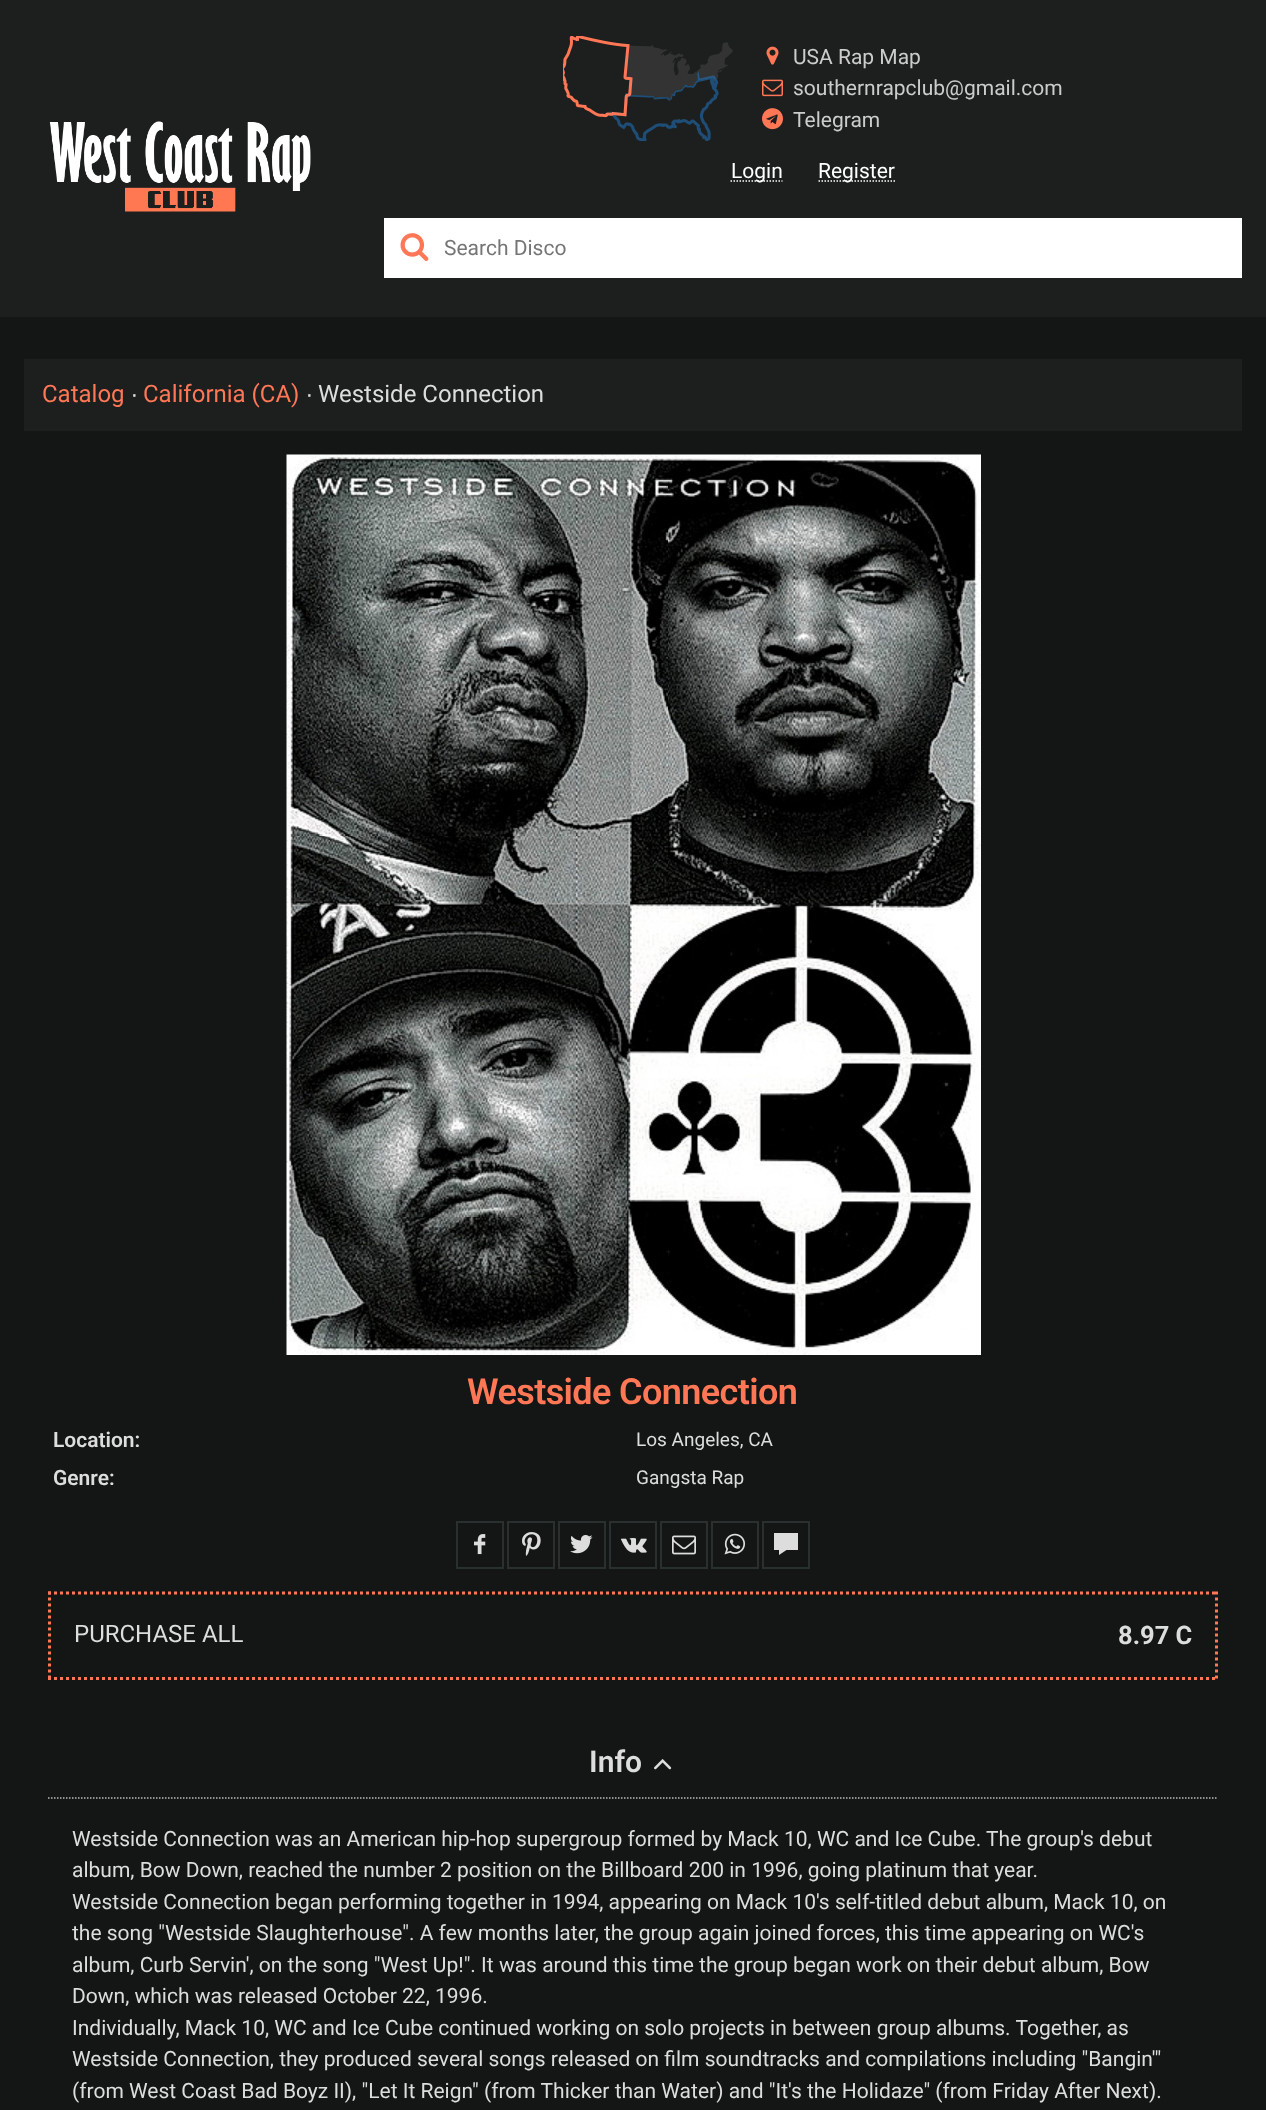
async function draw(canvas) {
  canvas.width = 1266;
  canvas.height = 2110;
  const ctx = canvas.getContext('2d');
  ctx.miterLimit = 4;
  ctx.fontKerning = 'normal';
  function label(s, x, y, font, color) {
    ctx.font = font;
    ctx.fillStyle = color;
    ctx.fillText(s, x, y);
  }
  function rect(x, y, w, h, color) {
    ctx.fillStyle = color;
    ctx.fillRect(x, y, w, h);
  }
  async function image(src, x, y, w, h) {
    const img = new Image();
    img.src = src;
    await img.decode();
    ctx.drawImage(img, x, y, w, h);
  }
  let path;

  rect(0, 0, 1266, 2110, '#141616');
  rect(0, 0, 1266, 317, '#1d1f1f');
  await image('assets/img1.png', 49, 121, 262, 91);
  await image('assets/img2.png', 563, 36, 170, 105);
  await image('assets/img3.png', 766, 46, 13, 19);
  label('USA Rap Map', 793, 64, '21px Roboto', '#ccc');
  await image('assets/img4.png', 762, 79, 21, 18);
  label('southernrapclub@gmail.com', 793, 95, '21px Roboto', '#ccc');
  await image('assets/img5.png', 762, 108, 21, 22);
  label('Telegram', 793, 127, '21px Roboto', '#ccc');
  path = new Path2D('M730.5 181H782.5');
  ctx.strokeStyle = '#fff';
  ctx.lineWidth = 1.5;
  ctx.setLineDash([1.5, 1.5]);
  ctx.stroke(path);
  label('Login', 731, 178, '21px Roboto', '#fff');
  path = new Path2D('M818.5 181H895.5');
  ctx.stroke(path);
  label('Register', 818, 178, '21px Roboto', '#fff');
  rect(384, 218, 858, 60, '#fff');
  await image('assets/img6.png', 400, 233, 29, 28);
  label('Search Disco', 444, 255, '21px Roboto', '#757575');
  rect(24, 359, 1218, 72, '#1d1f1f');
  label('Catalog', 42, 402, '24px Roboto', '#f75');
  label('∙', 131, 402, '24px Liberation Sans', '#ddd');
  label('California (CA)', 143, 402, '24px Roboto', '#f75');
  label('∙', 306, 402, '24px Liberation Sans', '#ddd');
  label('Westside Connection', 318, 402, '24px Roboto', '#ddd');
  await image('assets/img7.png', 286, 454, 695, 901);
  ctx.letterSpacing = '-0.6px';
  label('Westside Connection', 467, 1404, '600 36px Roboto', '#f75');
  ctx.letterSpacing = '0px';
  label('Location:', 53, 1447, '600 21px Roboto', '#ddd');
  label('Los Angeles, CA', 636, 1446, '19px Roboto', '#ddd');
  label('Genre:', 53, 1485, '600 21px Roboto', '#ddd');
  label('Gangsta Rap', 636, 1484, '19px Roboto', '#ddd');
  ctx.strokeStyle = '#2a2f2f';
  ctx.lineWidth = 2;
  ctx.setLineDash([]);
  ctx.strokeRect(457, 1522, 46, 46);
  await image('assets/img8.png', 474, 1534, 12, 21);
  ctx.strokeRect(508, 1522, 46, 46);
  await image('assets/img9.png', 522, 1532, 19, 24);
  ctx.strokeRect(559, 1522, 46, 46);
  await image('assets/img10.png', 570, 1535, 23, 19);
  ctx.strokeRect(610, 1522, 46, 46);
  await image('assets/img11.png', 621, 1538, 26, 15);
  ctx.strokeRect(661, 1522, 46, 46);
  await image('assets/img12.png', 672, 1535, 24, 20);
  ctx.strokeRect(712, 1522, 46, 46);
  await image('assets/img13.png', 724, 1533, 22, 22);
  ctx.strokeRect(763, 1522, 46, 46);
  path = new Path2D('M774 1550V1533H798V1550H786.5L779 1555V1550Z');
  ctx.fill(path);
  path = new Path2D('M48 1593H1218');
  ctx.strokeStyle = '#f75';
  ctx.lineWidth = 3;
  ctx.setLineDash([3, 3]);
  ctx.stroke(path);
  path = new Path2D('M1216.5 1591.5V1680');
  ctx.stroke(path);
  path = new Path2D('M48 1678.5H1218');
  ctx.stroke(path);
  path = new Path2D('M49.5 1591.5V1680');
  ctx.stroke(path);
  label('PURCHASE ALL', 74, 1642, '24px Roboto', '#ddd');
  label('8.97 C', 1118, 1644, 'bold 25.5px Roboto', '#ddd');
  path = new Path2D('M48 1798H1218');
  ctx.strokeStyle = '#bbb';
  ctx.lineWidth = 1.5;
  ctx.setLineDash([1.5, 1.5]);
  ctx.stroke(path);
  label('Info', 589, 1772, '600 30px Roboto', '#ddd');
  await image('assets/img14.png', 654, 1759, 18, 11);
  label('Westside Connection was an American hip-hop supergroup formed by Mack 10, WC and Ice Cube. The group\'s debut', 72, 1846, '21px Roboto', '#ddd');
  label('album, Bow Down, reached the number 2 position on the Billboard 200 in 1996, going platinum that year.', 72, 1877, '21px Roboto', '#ddd');
  label('Westside Connection began performing together in 1994, appearing on Mack 10\'s self-titled debut album, Mack 10, on', 72, 1909, '21px Roboto', '#ddd');
  label('the song "Westside Slaughterhouse". A few months later, the group again joined forces, this time appearing on WC\'s', 72, 1940, '21px Roboto', '#ddd');
  label('album, Curb Servin\', on the song "West Up!". It was around this time the group began work on their debut album, Bow', 72, 1972, '21px Roboto', '#ddd');
  label('Down, which was released October 22, 1996.', 72, 2003, '21px Roboto', '#ddd');
  label('Individually, Mack 10, WC and Ice Cube continued working on solo projects in between group albums. Together, as', 72, 2035, '21px Roboto', '#ddd');
  label('Westside Connection, they produced several songs released on film soundtracks and compilations including "Bangin\'"', 72, 2066, '21px Roboto', '#ddd');
  label('(from West Coast Bad Boyz II), "Let It Reign" (from Thicker than Water) and "It\'s the Holidaze" (from Friday After Next).', 72, 2098, '21px Roboto', '#ddd');
}

draw(document.querySelector('canvas'));
